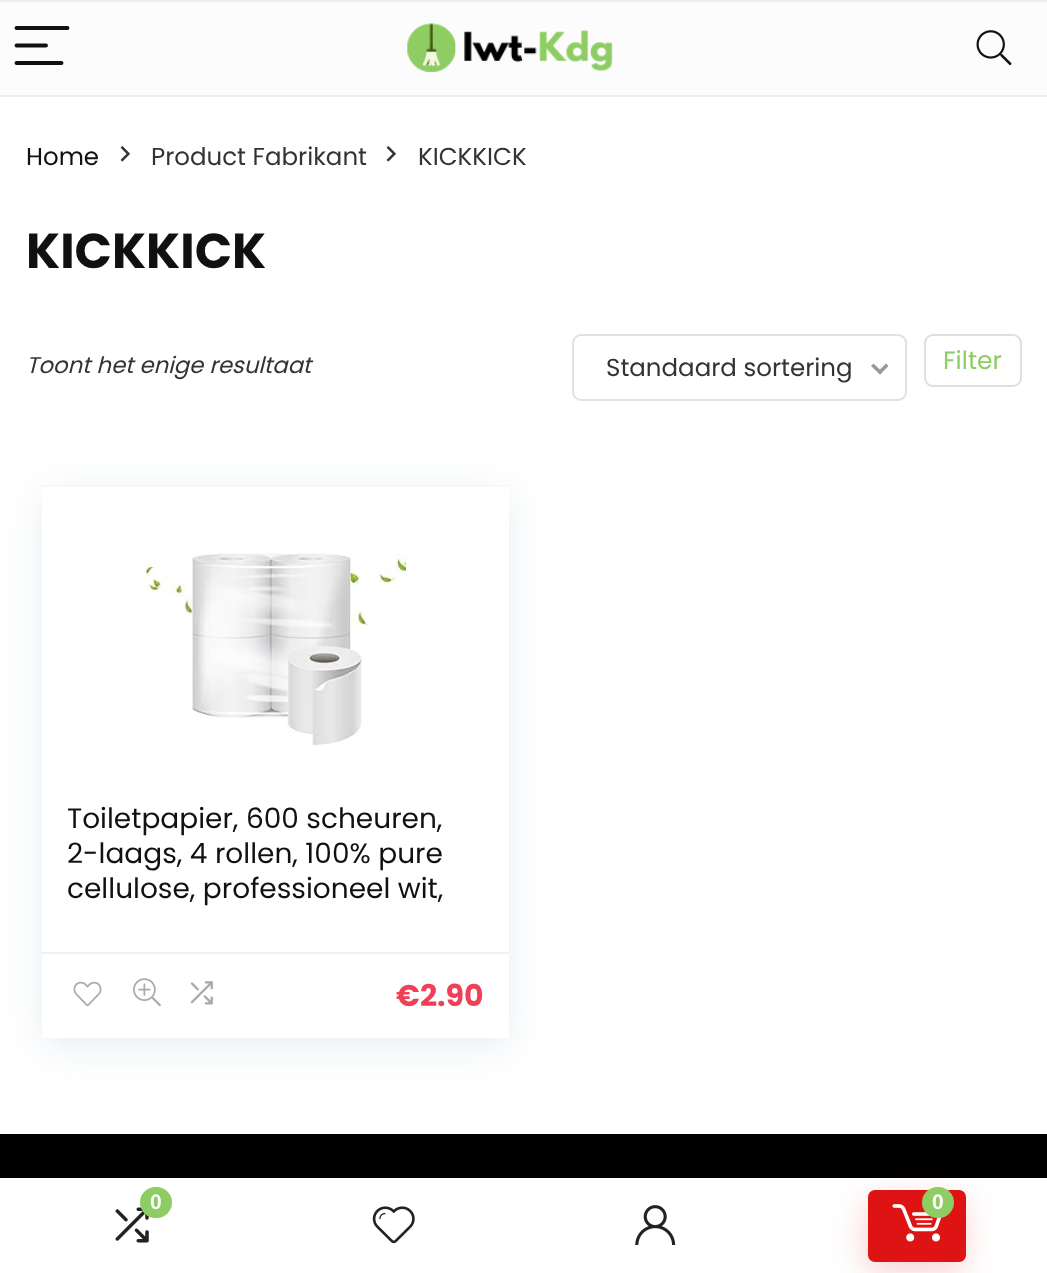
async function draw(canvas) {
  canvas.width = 1047;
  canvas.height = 1273;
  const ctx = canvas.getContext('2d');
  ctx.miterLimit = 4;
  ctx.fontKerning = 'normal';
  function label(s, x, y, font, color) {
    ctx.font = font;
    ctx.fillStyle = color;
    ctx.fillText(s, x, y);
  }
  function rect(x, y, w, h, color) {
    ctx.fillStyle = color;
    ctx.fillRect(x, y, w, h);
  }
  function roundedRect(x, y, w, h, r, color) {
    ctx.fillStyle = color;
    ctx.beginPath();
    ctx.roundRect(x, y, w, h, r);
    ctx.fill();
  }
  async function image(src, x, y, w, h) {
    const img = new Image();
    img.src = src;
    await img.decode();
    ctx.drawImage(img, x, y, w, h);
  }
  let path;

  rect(0, 0, 1047, 1273, '#fff');
  label('Home', 26, 165, '24.5px Poppins', '#111');
  await image('assets/img1.png', 120, 146, 10, 16);
  label('Product Fabrikant', 151, 165, '24.5px Poppins', '#333');
  await image('assets/img1.png', 386, 146, 10, 16);
  label('KICKKICK', 418, 165, '24.5px Poppins', '#333');
  label('KICKKICK', 26, 268, 'bold 49px Poppins', '#111');
  label('Toont het enige resultaat', 26, 373, 'italic 22.75px Poppins', '#333');
  ctx.beginPath();
  ctx.roundRect(573, 335, 333, 65, 8);
  ctx.strokeStyle = '#e1e1e1';
  ctx.lineWidth = 2;
  ctx.stroke();
  label('Standaard sortering', 606, 376, '24.5px Poppins', '#333');
  ctx.fillStyle = '#999';
  path = new Path2D('M886 363.5L888.5 366L880 374.5L877.5 372Z');
  ctx.fill(path);
  path = new Path2D('M873.5 363.5L882.5 372L880 374.5L871 366Z');
  ctx.fill(path);
  ctx.beginPath();
  ctx.roundRect(925, 335, 96, 51, 8);
  ctx.strokeStyle = '#dce0e0';
  ctx.stroke();
  label('Filter', 943, 369, '25px Poppins', '#8dcd63');
  ctx.fillStyle = '#bccfdb59';
  ctx.filter = 'blur(20px)';
  ctx.beginPath();
  ctx.rect(42, 494, 467, 553);
  ctx.fill();
  ctx.filter = 'none';
  rect(42, 487, 467, 551, '#fff');
  rect(42, 485, 467, 2, '#f8f8f8');
  await image('assets/img2.png', 143, 553, 263, 193);
  label('Toiletpapier, 600 scheuren,', 67, 828, '28px Poppins', '#111');
  label('2-laags, 4 rollen, 100% pure', 67, 863, '28px Poppins', '#111');
  label('cellulose, professioneel wit,', 67, 898, '28px Poppins', '#111');
  rect(42, 952, 467, 2, '#f0f0f0');
  await image('assets/img3.png', 73, 981, 29, 26);
  await image('assets/img4.png', 133, 978, 28, 29);
  await image('assets/img5.png', 190, 981, 23, 24);
  label('€2.90', 396, 1006, 'bold 30px Poppins', '#f04057');
  rect(0, 1134, 1047, 44, '#000');
  rect(0, 2, 1047, 93, '#fcfcfc');
  rect(0, 0, 1047, 2, '#eee');
  rect(0, 95, 1047, 2, '#eee');
  path = new Path2D('M16.5 28H67.5M16.5 45.5H46M16.5 63H61.5');
  ctx.strokeStyle = '#111';
  ctx.lineWidth = 3.9;
  ctx.lineCap = 'round';
  ctx.stroke(path);
  await image('assets/img6.png', 407, 23, 206, 49);
  await image('assets/img7.png', 976, 30, 36, 36);
  await image('assets/img8.png', 115, 1207, 34, 36);
  roundedRect(140, 1187, 32, 31, 15.5, '#8dcd63');
  label('0', 150, 1209, 'bold 21px Liberation Sans', '#fff');
  ctx.fillStyle = '#de141433';
  ctx.filter = 'blur(16.5px)';
  ctx.beginPath();
  ctx.roundRect(866, 1201, 98, 71, 7);
  ctx.fill();
  ctx.filter = 'none';
  roundedRect(868, 1190, 98, 72, 7, '#de1414');
  await image('assets/img9.png', 892, 1204, 50, 38);
  roundedRect(922, 1187, 32, 31, 15.5, '#8dcd63');
  label('0', 932, 1209, 'bold 21px Liberation Sans', '#fff');
  await image('assets/img10.png', 372, 1206, 43, 38);
  await image('assets/img11.png', 635, 1205, 41, 40);
}

draw(document.querySelector('canvas'));
